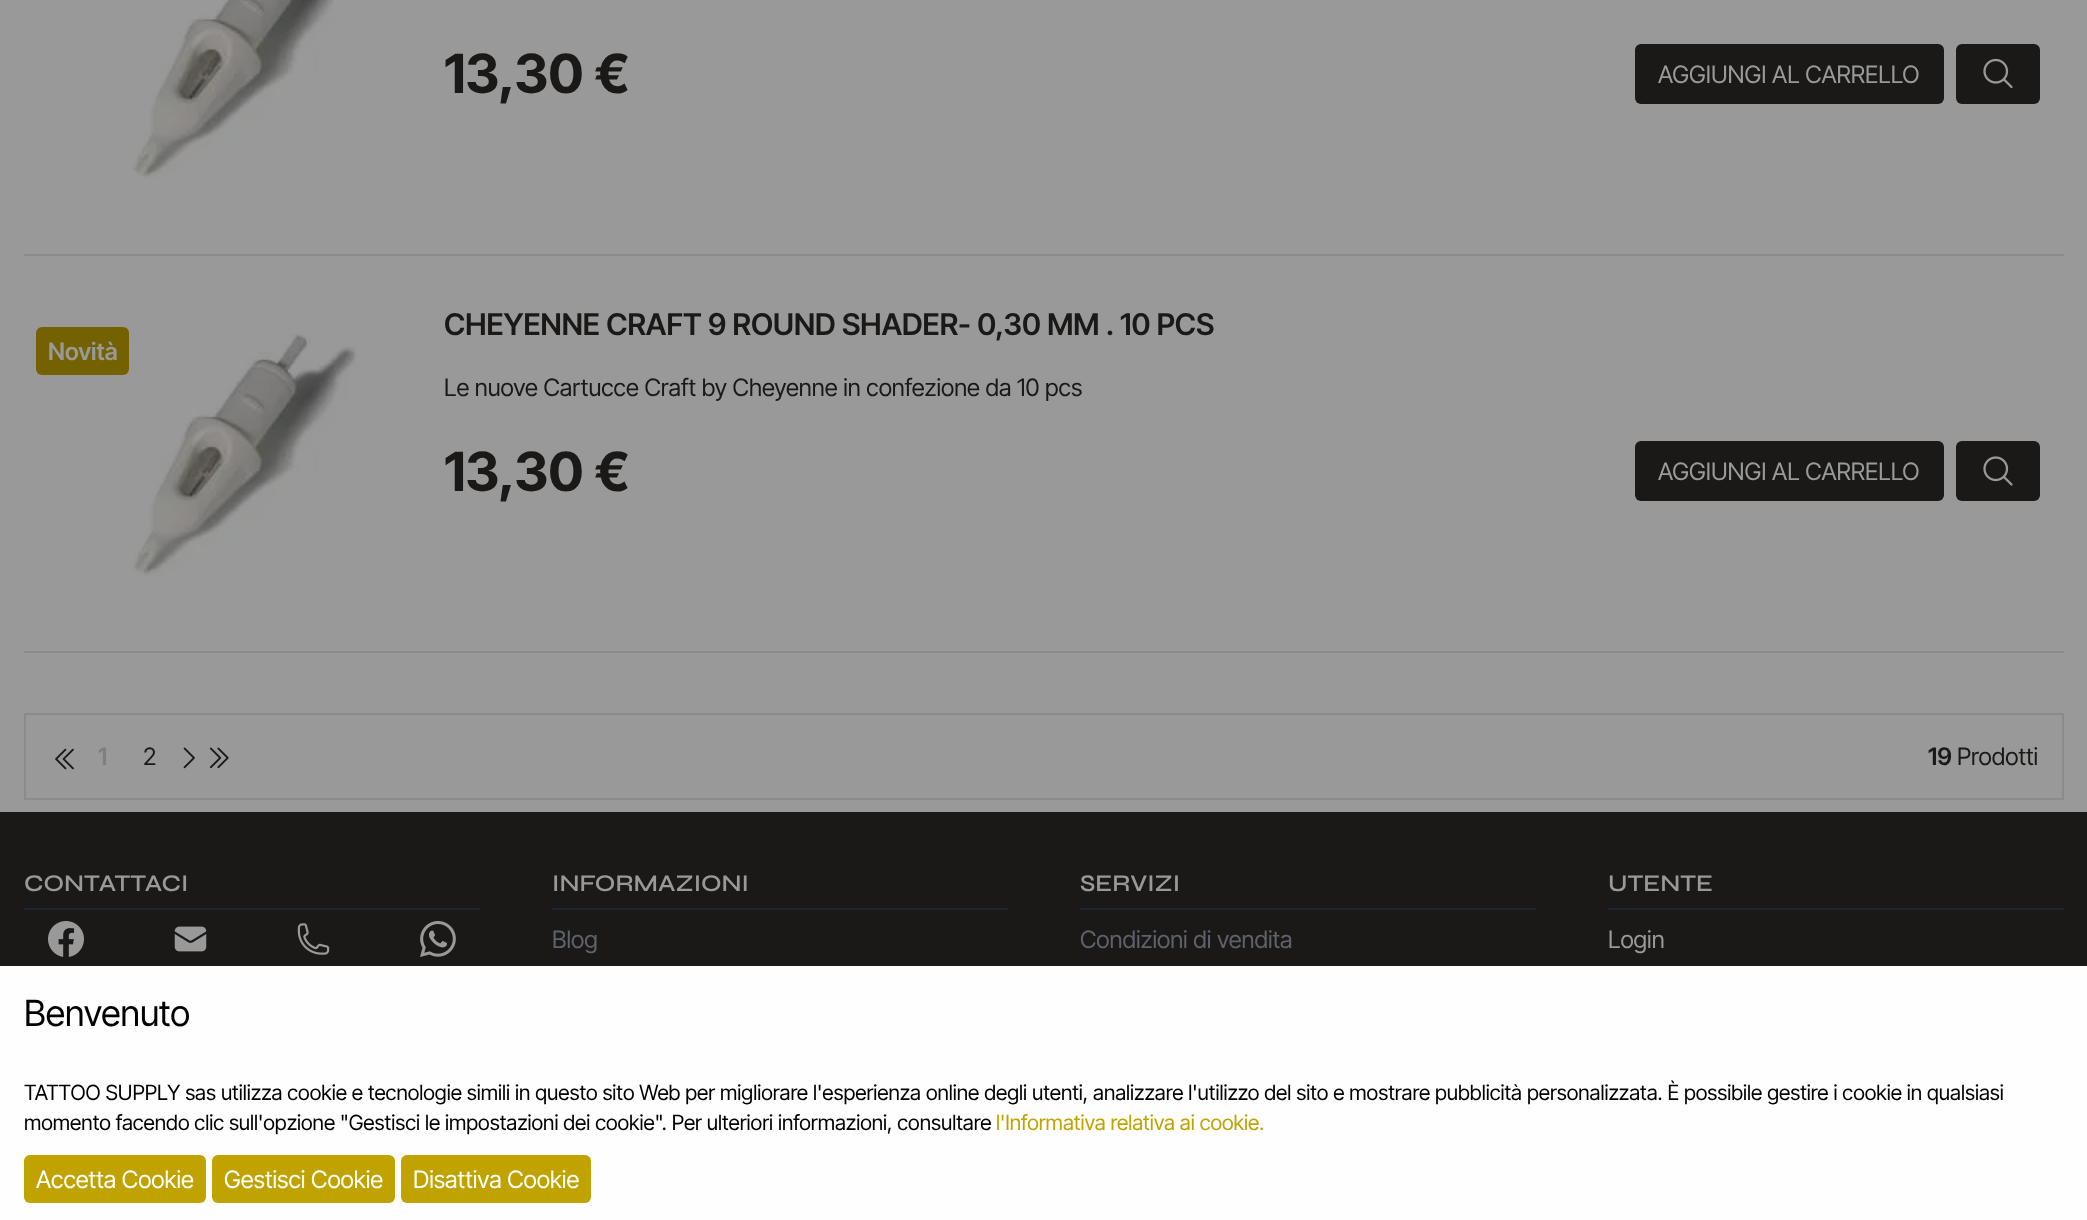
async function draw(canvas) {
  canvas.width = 2087;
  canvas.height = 1220;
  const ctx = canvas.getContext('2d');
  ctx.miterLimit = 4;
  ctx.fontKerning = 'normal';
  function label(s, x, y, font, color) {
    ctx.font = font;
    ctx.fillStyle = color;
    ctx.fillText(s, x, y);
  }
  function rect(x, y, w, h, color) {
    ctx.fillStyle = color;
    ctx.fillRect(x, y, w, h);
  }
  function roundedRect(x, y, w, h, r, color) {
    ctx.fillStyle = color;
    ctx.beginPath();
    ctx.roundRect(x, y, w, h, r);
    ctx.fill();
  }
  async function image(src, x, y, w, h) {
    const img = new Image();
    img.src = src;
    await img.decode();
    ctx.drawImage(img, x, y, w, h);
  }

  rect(0, 0, 2087, 1220, '#999');
  rect(24, 254, 2040, 2, '#898b8d');
  await image('assets/img1.png', 132, 0, 202, 179);
  label('13,30 €', 444, 93, 'bold 54px Inter Tight', '#1a1918');
  roundedRect(1635, 44, 309, 60, 6, '#1a1918');
  label('AGGIUNGI AL CARRELLO', 1658, 83, '24px Inter Tight', '#999');
  roundedRect(1956, 44, 84, 60, 6, '#1a1918');
  await image('assets/img2.png', 1983, 58, 30, 31);
  rect(24, 651, 2040, 2, '#898b8d');
  roundedRect(36, 327, 93, 48, 6, '#746200');
  label('Novità', 48, 360, '600 24px Inter Tight', '#999');
  await image('assets/img3.png', 132, 334, 225, 243);
  label('CHEYENNE CRAFT 9 ROUND SHADER- 0,30 MM . 10 PCS', 444, 335, '600 30px Inter Tight', '#1a1918');
  label('Le nuove Cartucce Craft by Cheyenne in confezione da 10 pcs', 444, 396, '24px Inter Tight', '#1a1918');
  label('13,30 €', 444, 491, 'bold 54px Inter Tight', '#1a1918');
  roundedRect(1635, 441, 309, 60, 6, '#1a1918');
  label('AGGIUNGI AL CARRELLO', 1658, 480, '24px Inter Tight', '#999');
  roundedRect(1956, 441, 84, 60, 6, '#1a1918');
  await image('assets/img4.png', 1983, 456, 30, 30);
  ctx.strokeStyle = '#898b8d';
  ctx.lineWidth = 2;
  ctx.strokeRect(25, 714, 2038, 85);
  await image('assets/img5.png', 55, 748, 19, 22);
  label('1', 98, 765, '600 24px Inter Tight', '#7d8083');
  label('2', 143, 765, '24px Inter Tight', '#1a1918');
  await image('assets/img6.png', 183, 747, 12, 22);
  await image('assets/img7.png', 209, 747, 20, 22);
  label('19', 1928, 765, '600 24px Inter Tight', '#1a1918');
  label('Prodotti', 1957, 765, '24px Inter Tight', '#1a1918');
  rect(0, 812, 2087, 154, '#1a1918');
  rect(24, 908, 456, 2, '#212731');
  label('CONTATTACI', 24, 891, '600 24px Syne', '#999');
  await image('assets/img8.png', 48, 921, 36, 36);
  await image('assets/img9.png', 174, 926, 33, 26);
  await image('assets/img10.png', 297, 923, 33, 32);
  await image('assets/img11.png', 420, 921, 36, 36);
  rect(552, 908, 456, 2, '#212731');
  label('INFORMAZIONI', 552, 891, '600 24px Syne', '#999');
  label('Blog', 552, 948, '24px Inter Tight', '#5e6269');
  rect(1080, 908, 456, 2, '#212731');
  label('SERVIZI', 1080, 891, '600 24px Syne', '#999');
  label('Condizioni di vendita', 1080, 948, '24px Inter Tight', '#5e6269');
  rect(1608, 908, 456, 2, '#212731');
  label('UTENTE', 1608, 891, '600 24px Syne', '#999');
  label('Login', 1608, 948, '24px Inter Tight', '#999');
  rect(0, 966, 2087, 254, '#fefefe');
  label('Benvenuto', 24, 1026, '36px Inter Tight', '#000');
  label('TATTOO SUPPLY sas utilizza cookie e tecnologie simili in questo sito Web per migliorare l\'esperienza online degli utenti, analizzare l\'utilizzo del sito e mostrare pubblicità personalizzata. È possibile gestire i cookie in qualsiasi', 24, 1100, '21px Inter Tight', '#000');
  label('momento facendo clic sull\'opzione "Gestisci le impostazioni dei cookie". Per ulteriori informazioni, consultare', 24, 1130, '21px Inter Tight', '#000');
  label('l\'Informativa relativa ai cookie.', 996, 1130, '21px Inter Tight', '#c1a300');
  roundedRect(24, 1155, 182, 48, 6, '#c1a300');
  label('Accetta Cookie', 36, 1188, '24px Inter Tight', '#fff');
  roundedRect(212, 1155, 183, 48, 6, '#c1a300');
  label('Gestisci Cookie', 224, 1188, '24px Inter Tight', '#fff');
  roundedRect(401, 1155, 190, 48, 6, '#c1a300');
  label('Disattiva Cookie', 413, 1188, '24px Inter Tight', '#fff');
}

draw(document.querySelector('canvas'));
